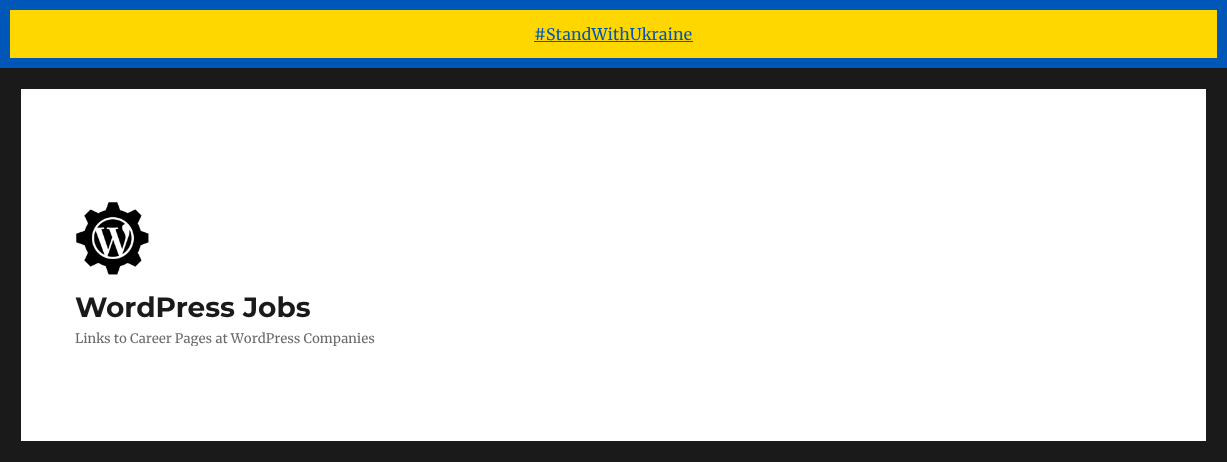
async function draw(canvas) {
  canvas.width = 1227;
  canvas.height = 462;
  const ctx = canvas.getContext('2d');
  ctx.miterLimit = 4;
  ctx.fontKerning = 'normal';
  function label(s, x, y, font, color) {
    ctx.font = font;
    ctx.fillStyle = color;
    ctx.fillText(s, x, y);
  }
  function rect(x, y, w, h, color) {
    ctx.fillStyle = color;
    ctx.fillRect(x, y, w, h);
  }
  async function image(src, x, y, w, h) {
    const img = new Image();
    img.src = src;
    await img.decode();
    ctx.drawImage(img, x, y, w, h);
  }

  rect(0, 0, 1227, 462, '#1a1a1a');
  ctx.fillStyle = '#ffd700';
  ctx.beginPath();
  ctx.rect(5, 5, 1217, 58);
  ctx.fill();
  ctx.strokeStyle = '#0057b8';
  ctx.lineWidth = 10;
  ctx.stroke();
  label('#StandWithUkraine', 534, 40, '16px Merriweather', '#0057b8');
  rect(534, 41, 159, 1, '#0057b8');
  rect(21, 89, 1185, 352, '#fff');
  await image('assets/img1.png', 76, 202, 73, 73);
  label('WordPress Jobs', 75, 317, '100 28px Montserrat', '#1a1a1a');
  ctx.save();
  ctx.beginPath();
  ctx.rect(75, 201, 300, 145);
  ctx.clip();
  label('Links to Career Pages at WordPress Companies', 75, 343, '13px Merriweather', '#686868');
  ctx.restore();
}

draw(document.querySelector('canvas'));
